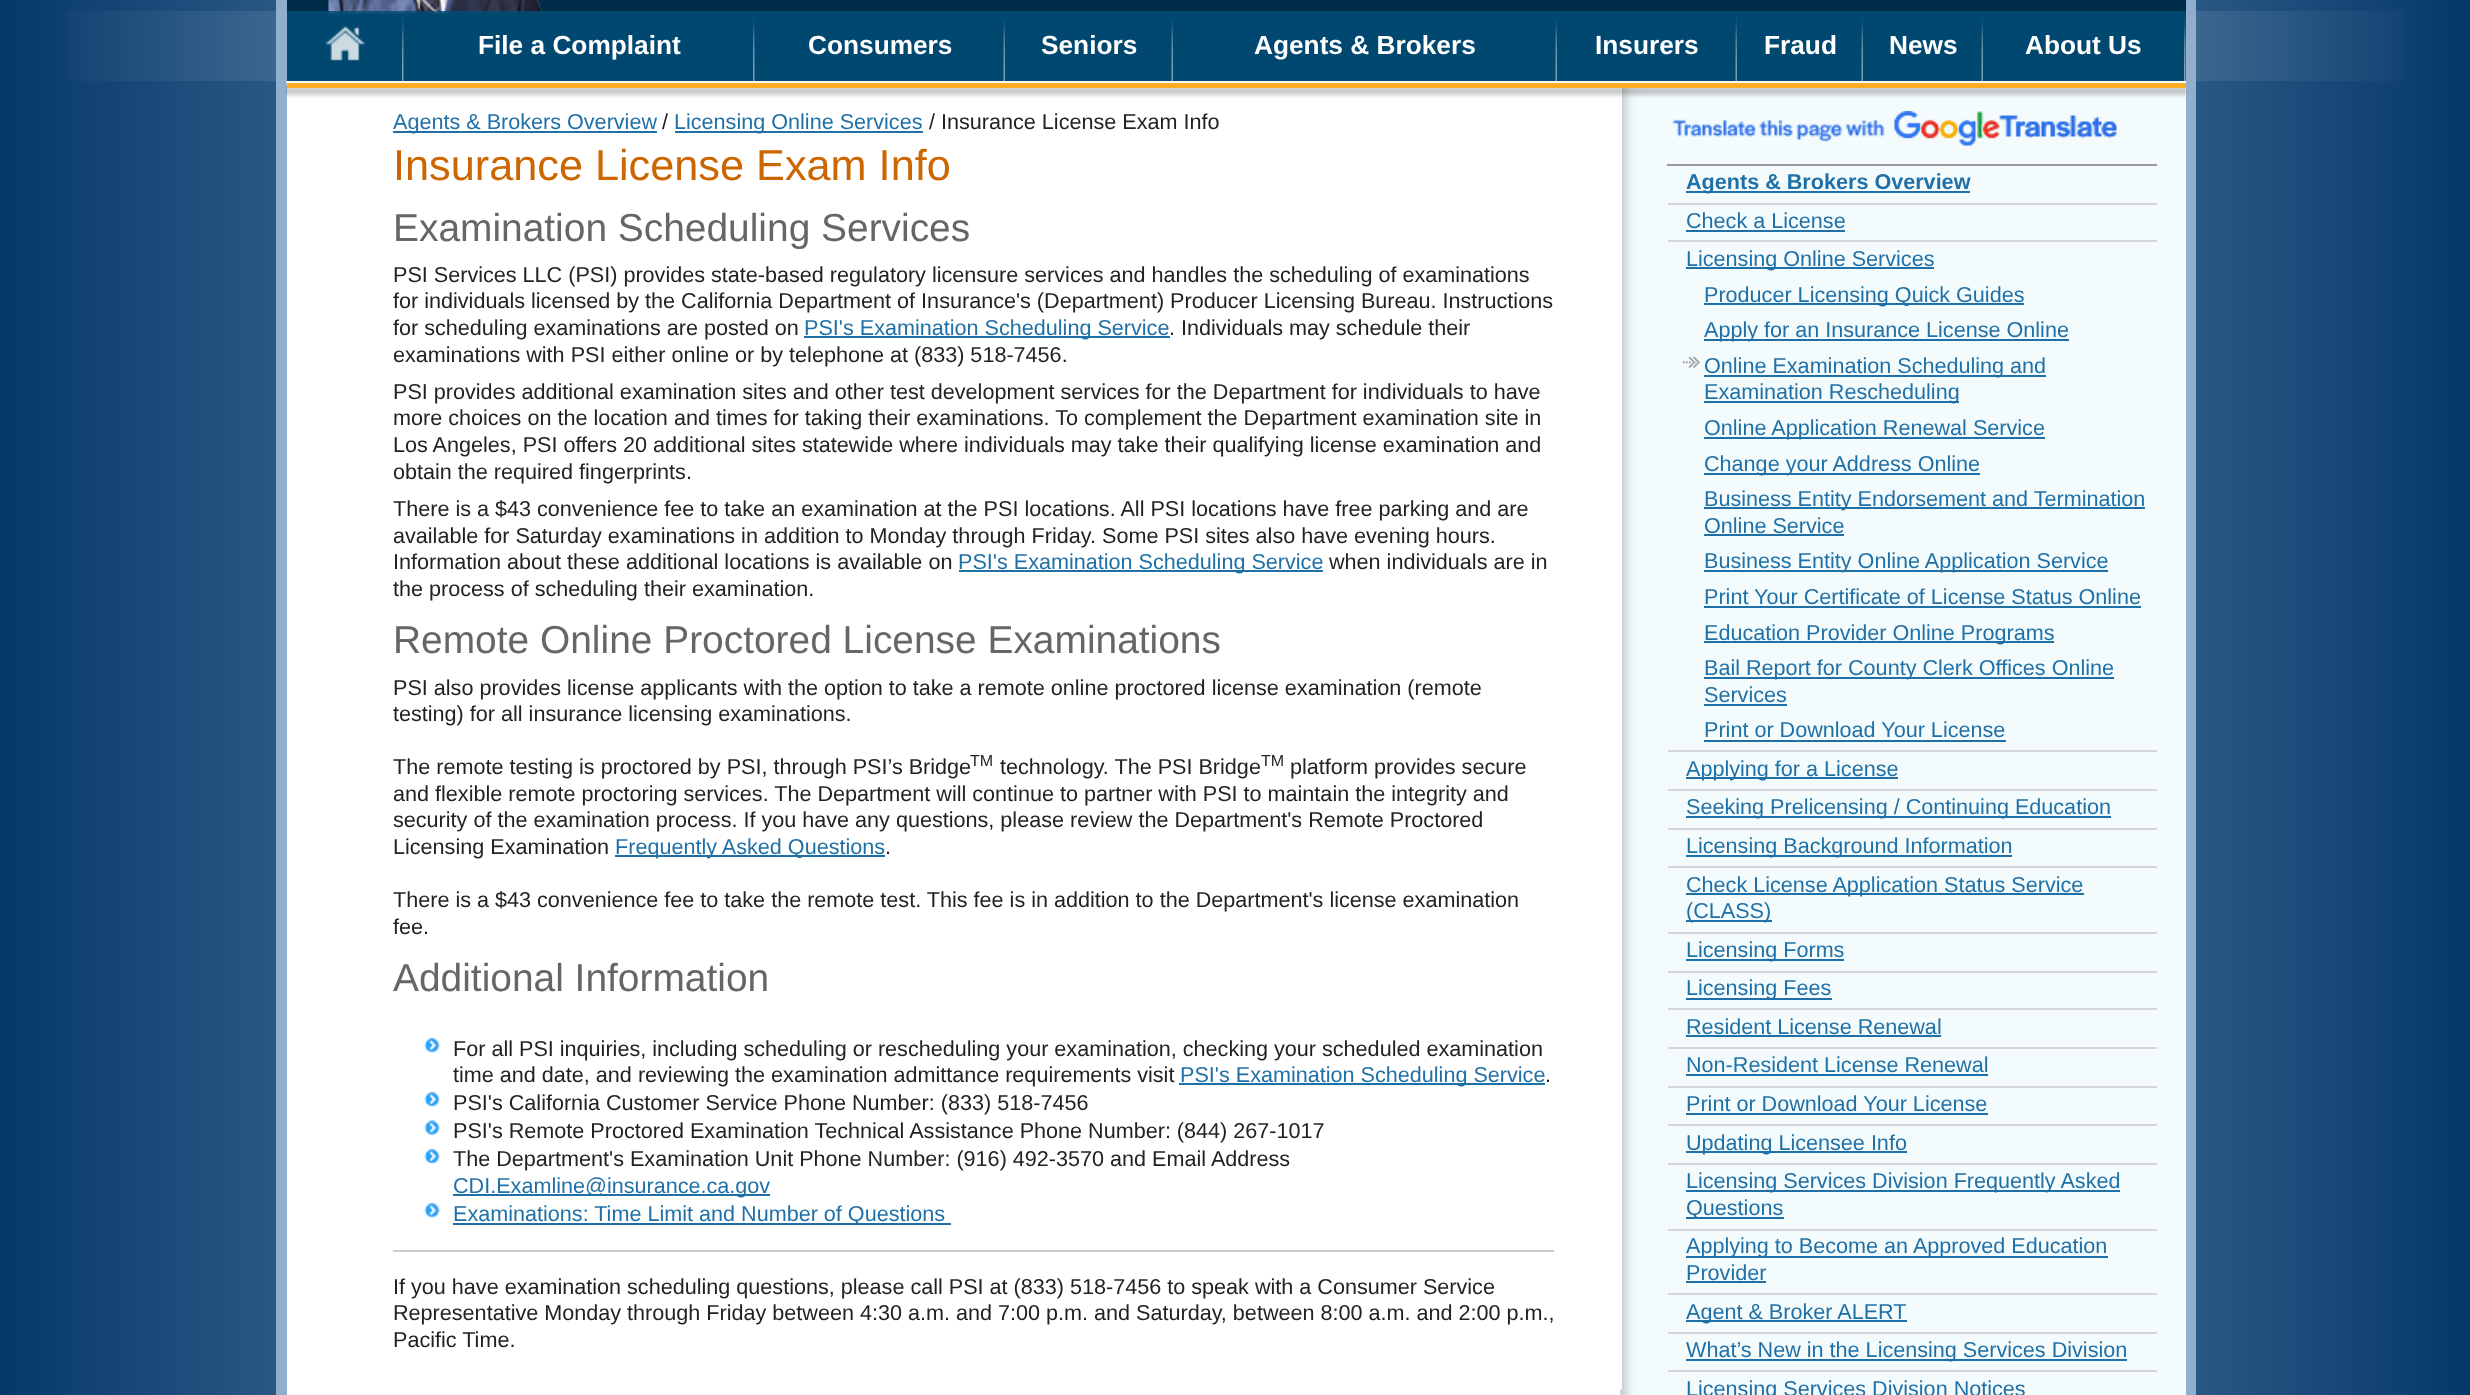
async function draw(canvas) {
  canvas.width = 2470;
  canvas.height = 1395;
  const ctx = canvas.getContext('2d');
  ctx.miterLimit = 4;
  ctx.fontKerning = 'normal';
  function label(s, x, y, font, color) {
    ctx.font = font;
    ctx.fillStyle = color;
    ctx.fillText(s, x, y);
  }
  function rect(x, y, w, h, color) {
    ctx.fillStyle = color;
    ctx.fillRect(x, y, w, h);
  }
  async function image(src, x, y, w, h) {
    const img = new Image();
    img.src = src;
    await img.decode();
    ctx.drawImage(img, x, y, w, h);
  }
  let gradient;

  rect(0, 0, 2470, 1395, '#fff');
  gradient = ctx.createLinearGradient(0, 712, 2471, 712);
  gradient.addColorStop(0, '#05386a');
  gradient.addColorStop(0.5, '#a6c6df');
  gradient.addColorStop(1, '#05386a');
  ctx.fillStyle = gradient;
  ctx.fillRect(0, 0, 2470, 1395);
  gradient = ctx.createLinearGradient(0, 46, 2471, 46);
  gradient.addColorStop(0, '#ffffff00');
  gradient.addColorStop(0.5, '#ffffff66');
  gradient.addColorStop(1, '#ffffff00');
  ctx.fillStyle = gradient;
  ctx.fillRect(67, 11, 2337, 70);
  rect(287, 0, 1899, 81, '#002c49');
  await image('assets/img1.png', 328, 0, 215, 14);
  rect(287, 11, 1899, 70, '#014e77d9');
  await image('assets/img5.png', 1620, 88, 566, 1307);
  rect(276, 0, 11, 1395, '#91aecd');
  rect(287, 88, 1335, 1301, '#fff');
  await image('assets/img6.png', 286, 81, 1336, 17);
  rect(287, 83, 1899, 5, '#fbad23');
  await image('assets/img2.png', 402, 17, 2, 64);
  await image('assets/img3.png', 325, 25, 41, 36);
  await image('assets/img2.png', 753, 17, 2, 64);
  label('File a Complaint', 478, 54, 'bold 26.25px Liberation Sans', '#fff');
  await image('assets/img4.png', 1003, 17, 2, 64);
  label('Consumers', 808, 54, 'bold 26.25px Liberation Sans', '#fff');
  await image('assets/img4.png', 1171, 17, 2, 64);
  label('Seniors', 1041, 54, 'bold 26.25px Liberation Sans', '#fff');
  await image('assets/img4.png', 1555, 17, 2, 64);
  label('Agents & Brokers', 1254, 54, 'bold 26.25px Liberation Sans', '#fff');
  await image('assets/img4.png', 1735, 17, 2, 64);
  rect(1621, 81, 565, 2, '#fff');
  label('Insurers', 1595, 54, 'bold 26.25px Liberation Sans', '#fff');
  await image('assets/img4.png', 1861, 17, 2, 64);
  label('Fraud', 1764, 54, 'bold 26.25px Liberation Sans', '#fff');
  await image('assets/img4.png', 1981, 17, 2, 64);
  label('News', 1889, 54, 'bold 26.25px Liberation Sans', '#fff');
  await image('assets/img2.png', 2184, 17, 2, 64);
  label('About Us', 2025, 54, 'bold 26.25px Liberation Sans', '#fff');
  rect(287, 1389, 1333, 6, '#fff');
  rect(2186, 0, 10, 1395, '#91aecd');
  rect(393, 131, 264, 2, '#1f70a7');
  label('Agents & Brokers Overview', 393, 129, '21.6px Liberation Sans', '#1f70a7');
  label('/', 662, 129, '21.6px Liberation Sans', '#222');
  rect(675, 131, 248, 2, '#1f70a7');
  label('Licensing Online Services', 674, 129, '21.6px Liberation Sans', '#1f70a7');
  label('/ Insurance License Exam Info', 929, 129, '21.6px Liberation Sans', '#222');
  label('Insurance License Exam Info', 393, 180, '43.25px Liberation Sans', '#c60');
  label('Examination Scheduling Services', 393, 241, '38.9px Liberation Sans', '#666');
  label('PSI Services LLC (PSI) provides state-based regulatory licensure services and handles the scheduling of examinations', 393, 282, '21.6px Liberation Sans', '#222');
  label('for individuals licensed by the California Department of Insurance\'s (Department) Producer Licensing Bureau. Instructions', 393, 308, '21.6px Liberation Sans', '#222');
  label('for scheduling examinations are posted on', 393, 335, '21.6px Liberation Sans', '#222');
  rect(804, 336, 366, 2, '#1f70a7');
  label('PSI\'s Examination Scheduling Service', 804, 335, '21.6px Liberation Sans', '#1f70a7');
  label('. Individuals may schedule their', 1169, 335, '21.6px Liberation Sans', '#222');
  label('examinations with PSI either online or by telephone at (833) 518-7456.', 393, 362, '21.6px Liberation Sans', '#222');
  label('PSI provides additional examination sites and other test development services for the Department for individuals to have', 393, 399, '21.6px Liberation Sans', '#222');
  label('more choices on the location and times for taking their examinations. To complement the Department examination site in', 393, 425, '21.6px Liberation Sans', '#222');
  label('Los Angeles, PSI offers 20 additional sites statewide where individuals may take their qualifying license examination and', 393, 452, '21.6px Liberation Sans', '#222');
  label('obtain the required fingerprints.', 393, 479, '21.6px Liberation Sans', '#222');
  label('There is a $43 convenience fee to take an examination at the PSI locations. All PSI locations have free parking and are', 393, 516, '21.6px Liberation Sans', '#222');
  label('available for Saturday examinations in addition to Monday through Friday. Some PSI sites also have evening hours.', 393, 543, '21.6px Liberation Sans', '#222');
  label('Information about these additional locations is available on', 393, 569, '21.6px Liberation Sans', '#222');
  rect(959, 570, 364, 2, '#1f70a7');
  label('PSI\'s Examination Scheduling Service', 958, 569, '21.6px Liberation Sans', '#1f70a7');
  label('when individuals are in', 1329, 569, '21.6px Liberation Sans', '#222');
  label('the process of scheduling their examination.', 393, 596, '21.6px Liberation Sans', '#222');
  label('Remote Online Proctored License Examinations', 393, 653, '38.9px Liberation Sans', '#666');
  label('PSI also provides license applicants with the option to take a remote online proctored license examination (remote', 393, 695, '21.6px Liberation Sans', '#222');
  label('testing) for all insurance licensing examinations.', 393, 721, '21.6px Liberation Sans', '#222');
  label('The remote testing is proctored by PSI, through PSI’s Bridge', 393, 774, '21.6px Liberation Sans', '#222');
  label('TM', 970, 766, '16px Liberation Sans', '#222');
  label('technology. The PSI Bridge', 1000, 774, '21.6px Liberation Sans', '#222');
  label('TM', 1261, 766, '16px Liberation Sans', '#222');
  label('platform provides secure', 1290, 774, '21.6px Liberation Sans', '#222');
  label('and flexible remote proctoring services. The Department will continue to partner with PSI to maintain the integrity and', 393, 801, '21.6px Liberation Sans', '#222');
  label('security of the examination process. If you have any questions, please review the Department\'s Remote Proctored', 393, 827, '21.6px Liberation Sans', '#222');
  label('Licensing Examination', 393, 854, '21.6px Liberation Sans', '#222');
  rect(615, 855, 270, 2, '#1f70a7');
  label('Frequently Asked Questions', 615, 854, '21.6px Liberation Sans', '#1f70a7');
  label('.', 885, 854, '21.6px Liberation Sans', '#222');
  label('There is a $43 convenience fee to take the remote test. This fee is in addition to the Department\'s license examination', 393, 907, '21.6px Liberation Sans', '#222');
  label('fee.', 393, 934, '21.6px Liberation Sans', '#222');
  label('Additional Information', 393, 991, '38.9px Liberation Sans', '#666');
  await image('assets/img7.png', 424, 1037, 16, 17);
  label('For all PSI inquiries, including scheduling or rescheduling your examination, checking your scheduled examination', 453, 1056, '21.6px Liberation Sans', '#222');
  label('time and date, and reviewing the examination admittance requirements visit', 453, 1082, '21.6px Liberation Sans', '#222');
  rect(1179, 1083, 366, 2, '#1f70a7');
  label('PSI\'s Examination Scheduling Service', 1180, 1082, '21.6px Liberation Sans', '#1f70a7');
  label('.', 1545, 1082, '21.6px Liberation Sans', '#222');
  await image('assets/img7.png', 424, 1091, 16, 17);
  label('PSI\'s California Customer Service Phone Number: (833) 518-7456', 453, 1110, '21.6px Liberation Sans', '#222');
  await image('assets/img8.png', 424, 1120, 16, 16);
  label('PSI\'s Remote Proctored Examination Technical Assistance Phone Number: (844) 267-1017', 453, 1138, '21.6px Liberation Sans', '#222');
  await image('assets/img7.png', 424, 1148, 16, 17);
  label('The Department\'s Examination Unit Phone Number: (916) 492-3570 and Email Address', 453, 1166, '21.6px Liberation Sans', '#222');
  rect(453, 1194, 317, 2, '#1f70a7');
  label('CDI.Examline@insurance.ca.gov', 453, 1193, '21.6px Liberation Sans', '#1f70a7');
  await image('assets/img7.png', 424, 1202, 16, 17);
  rect(453, 1223, 498, 2, '#1f70a7');
  label('Examinations: Time Limit and Number of Questions', 453, 1221, '21.6px Liberation Sans', '#1f70a7');
  rect(393, 1250, 1161, 2, '#ccc');
  label('If you have examination scheduling questions, please call PSI at (833) 518-7456 to speak with a Consumer Service', 393, 1294, '21.6px Liberation Sans', '#222');
  label('Representative Monday through Friday between 4:30 a.m. and 7:00 p.m. and Saturday, between 8:00 a.m. and 2:00 p.m.,', 393, 1320, '21.6px Liberation Sans', '#222');
  label('Pacific Time.', 393, 1347, '21.6px Liberation Sans', '#222');
  await image('assets/img9.png', 1621, 88, 565, 10);
  await image('assets/img10.png', 1672, 111, 445, 35);
  rect(1667, 164, 490, 2, '#999');
  rect(1686, 191, 284, 2, '#1f70a7');
  label('Agents & Brokers Overview', 1686, 189, 'bold 21.6px Liberation Sans', '#1f70a7');
  rect(1668, 203, 489, 2, '#d6d6d6');
  label('Check a License', 1686, 228, '21.6px Liberation Sans', '#1f70a7');
  rect(1686, 230, 159, 2, '#1f70a7');
  rect(1668, 240, 489, 2, '#d6d6d6');
  rect(1686, 267, 248, 2, '#1f70a7');
  label('Licensing Online Services', 1686, 266, '21.6px Liberation Sans', '#1f70a7');
  rect(1704, 303, 320, 2, '#1f70a7');
  label('Producer Licensing Quick Guides', 1704, 302, '21.6px Liberation Sans', '#1f70a7');
  rect(1704, 339, 365, 2, '#1f70a7');
  label('Apply for an Insurance License Online', 1704, 337, '21.6px Liberation Sans', '#1f70a7');
  await image('assets/img11.png', 1682, 356, 18, 12);
  rect(1704, 375, 342, 2, '#1f70a7');
  label('Online Examination Scheduling and', 1704, 373, '21.6px Liberation Sans', '#1f70a7');
  rect(1704, 401, 255, 2, '#1f70a7');
  label('Examination Rescheduling', 1704, 399, '21.6px Liberation Sans', '#1f70a7');
  rect(1704, 437, 341, 2, '#1f70a7');
  label('Online Application Renewal Service', 1704, 435, '21.6px Liberation Sans', '#1f70a7');
  rect(1704, 473, 276, 2, '#1f70a7');
  label('Change your Address Online', 1704, 471, '21.6px Liberation Sans', '#1f70a7');
  rect(1704, 507, 441, 2, '#1f70a7');
  label('Business Entity Endorsement and Termination', 1704, 506, '21.6px Liberation Sans', '#1f70a7');
  label('Online Service', 1704, 533, '21.6px Liberation Sans', '#1f70a7');
  rect(1704, 534, 140, 2, '#1f70a7');
  rect(1704, 570, 404, 2, '#1f70a7');
  label('Business Entity Online Application Service', 1704, 568, '21.6px Liberation Sans', '#1f70a7');
  label('Print Your Certificate of License Status Online', 1704, 604, '21.6px Liberation Sans', '#1f70a7');
  rect(1704, 606, 437, 2, '#1f70a7');
  rect(1704, 641, 350, 2, '#1f70a7');
  label('Education Provider Online Programs', 1704, 640, '21.6px Liberation Sans', '#1f70a7');
  rect(1704, 677, 410, 2, '#1f70a7');
  label('Bail Report for County Clerk Offices Online', 1704, 675, '21.6px Liberation Sans', '#1f70a7');
  label('Services', 1704, 702, '21.6px Liberation Sans', '#1f70a7');
  rect(1704, 704, 83, 2, '#1f70a7');
  label('Print or Download Your License', 1704, 737, '21.6px Liberation Sans', '#1f70a7');
  rect(1704, 740, 302, 2, '#1f70a7');
  rect(1668, 750, 489, 2, '#d6d6d6');
  rect(1686, 777, 212, 2, '#1f70a7');
  label('Applying for a License', 1686, 776, '21.6px Liberation Sans', '#1f70a7');
  rect(1668, 789, 489, 2, '#d6d6d6');
  rect(1686, 816, 425, 2, '#1f70a7');
  label('Seeking Prelicensing / Continuing Education', 1686, 814, '21.6px Liberation Sans', '#1f70a7');
  rect(1668, 828, 489, 2, '#d6d6d6');
  rect(1686, 855, 326, 2, '#1f70a7');
  label('Licensing Background Information', 1686, 853, '21.6px Liberation Sans', '#1f70a7');
  rect(1668, 866, 489, 2, '#d6d6d6');
  rect(1686, 893, 398, 2, '#1f70a7');
  label('Check License Application Status Service', 1686, 892, '21.6px Liberation Sans', '#1f70a7');
  rect(1686, 920, 86, 2, '#1f70a7');
  label('(CLASS)', 1686, 918, '21.6px Liberation Sans', '#1f70a7');
  rect(1668, 932, 489, 2, '#d6d6d6');
  rect(1686, 959, 158, 2, '#1f70a7');
  label('Licensing Forms', 1686, 957, '21.6px Liberation Sans', '#1f70a7');
  rect(1668, 971, 489, 2, '#d6d6d6');
  rect(1686, 998, 146, 2, '#1f70a7');
  label('Licensing Fees', 1686, 995, '21.6px Liberation Sans', '#1f70a7');
  rect(1668, 1008, 489, 2, '#d6d6d6');
  label('Resident License Renewal', 1686, 1034, '21.6px Liberation Sans', '#1f70a7');
  rect(1686, 1035, 255, 2, '#1f70a7');
  rect(1668, 1047, 489, 2, '#d6d6d6');
  label('Non-Resident License Renewal', 1686, 1072, '21.6px Liberation Sans', '#1f70a7');
  rect(1686, 1074, 302, 2, '#1f70a7');
  rect(1668, 1086, 489, 2, '#d6d6d6');
  label('Print or Download Your License', 1686, 1111, '21.6px Liberation Sans', '#1f70a7');
  rect(1686, 1113, 302, 2, '#1f70a7');
  rect(1668, 1124, 489, 2, '#d6d6d6');
  rect(1686, 1151, 221, 2, '#1f70a7');
  label('Updating Licensee Info', 1686, 1150, '21.6px Liberation Sans', '#1f70a7');
  rect(1668, 1163, 489, 2, '#d6d6d6');
  rect(1686, 1190, 434, 2, '#1f70a7');
  label('Licensing Services Division Frequently Asked', 1686, 1188, '21.6px Liberation Sans', '#1f70a7');
  rect(1686, 1217, 98, 2, '#1f70a7');
  label('Questions', 1686, 1215, '21.6px Liberation Sans', '#1f70a7');
  rect(1668, 1229, 489, 2, '#d6d6d6');
  rect(1686, 1256, 422, 2, '#1f70a7');
  label('Applying to Become an Approved Education', 1686, 1253, '21.6px Liberation Sans', '#1f70a7');
  label('Provider', 1686, 1280, '21.6px Liberation Sans', '#1f70a7');
  rect(1686, 1281, 80, 2, '#1f70a7');
  rect(1668, 1293, 489, 2, '#d6d6d6');
  rect(1686, 1320, 221, 2, '#1f70a7');
  label('Agent & Broker ALERT', 1686, 1319, '21.6px Liberation Sans', '#1f70a7');
  rect(1668, 1332, 489, 2, '#d6d6d6');
  rect(1686, 1359, 441, 2, '#1f70a7');
  label('What’s New in the Licensing Services Division', 1686, 1357, '21.6px Liberation Sans', '#1f70a7');
  rect(1668, 1370, 489, 2, '#d6d6d6');
  label('Licensing Services Division Notices', 1686, 1396, '21.6px Liberation Sans', '#1f70a7');
}

draw(document.querySelector('canvas'));
